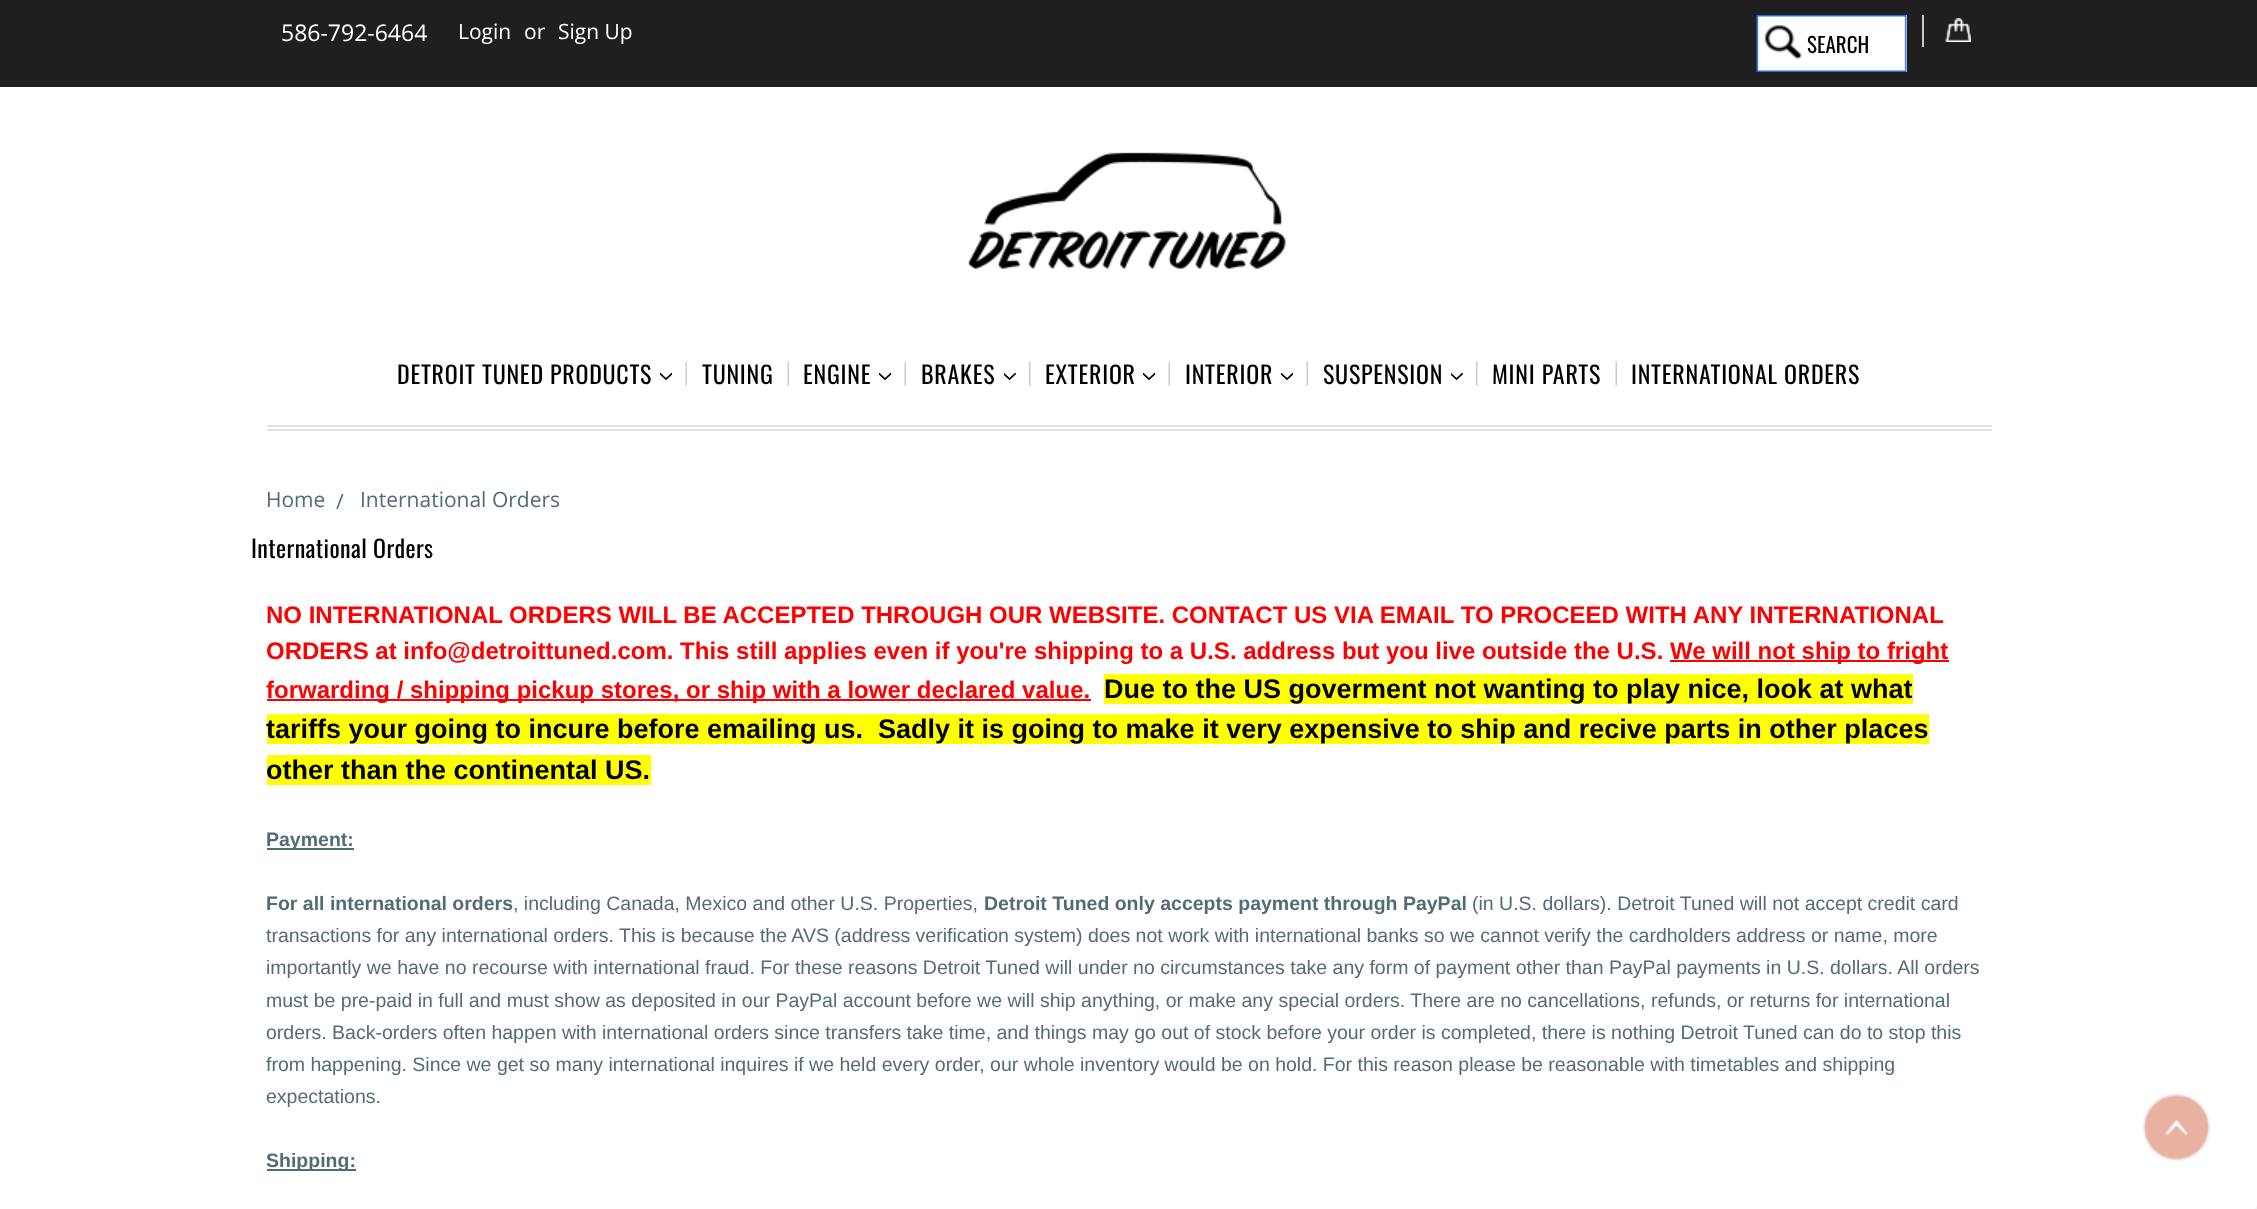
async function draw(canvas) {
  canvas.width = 2257;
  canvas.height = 1209;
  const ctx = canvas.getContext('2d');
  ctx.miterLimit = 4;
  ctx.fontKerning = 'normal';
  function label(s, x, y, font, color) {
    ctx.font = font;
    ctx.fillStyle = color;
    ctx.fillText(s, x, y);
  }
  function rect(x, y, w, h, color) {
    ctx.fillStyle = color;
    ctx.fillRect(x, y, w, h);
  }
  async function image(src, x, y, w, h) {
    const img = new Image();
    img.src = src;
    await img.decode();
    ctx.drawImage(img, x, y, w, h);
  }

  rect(0, 0, 2257, 1209, '#fff');
  rect(0, 0, 2257, 87, '#1f1f1f');
  label('586-792-6464', 281, 41, '23px Open Sans', '#fff');
  label('Login', 458, 39, '21px Open Sans', '#fff');
  label('or', 524, 39, '21px Open Sans', '#fff');
  label('Sign Up', 558, 39, '21px Open Sans', '#fff');
  rect(1906, 15, 1, 57, '#fff');
  await image('assets/img1.png', 1756, 15, 151, 57);
  label('SEARCH', 1807, 53, '21px Oswald', '#000');
  rect(1922, 15, 2, 32, '#c9c9c9');
  await image('assets/img2.png', 1945, 18, 26, 24);
  await image('assets/img3.png', 968, 152, 318, 117);
  rect(267, 425, 1725, 2, '#e3e3e3');
  rect(267, 429, 1725, 2, '#e3e3e3');
  await image('assets/img4.png', 685, 361, 2, 25);
  ctx.letterSpacing = '0.75px';
  label('DETROIT TUNED PRODUCTS', 397, 384, '24px Oswald', '#000');
  await image('assets/img5.png', 660, 372, 12, 9);
  await image('assets/img4.png', 787, 361, 2, 25);
  label('TUNING', 702, 384, '24px Oswald', '#000');
  await image('assets/img4.png', 904, 361, 2, 25);
  label('ENGINE', 803, 384, '24px Oswald', '#000');
  await image('assets/img5.png', 879, 372, 12, 9);
  await image('assets/img6.png', 1029, 361, 2, 25);
  label('BRAKES', 921, 384, '24px Oswald', '#000');
  await image('assets/img7.png', 1004, 372, 12, 9);
  await image('assets/img4.png', 1168, 361, 2, 25);
  label('EXTERIOR', 1045, 384, '24px Oswald', '#000');
  await image('assets/img5.png', 1143, 372, 12, 9);
  await image('assets/img4.png', 1306, 361, 2, 25);
  label('INTERIOR', 1185, 384, '24px Oswald', '#000');
  await image('assets/img5.png', 1281, 372, 12, 9);
  await image('assets/img6.png', 1476, 361, 2, 25);
  label('SUSPENSION', 1323, 384, '24px Oswald', '#000');
  await image('assets/img7.png', 1451, 372, 12, 9);
  await image('assets/img4.png', 1615, 361, 2, 25);
  label('MINI PARTS', 1492, 384, '24px Oswald', '#000');
  label('INTERNATIONAL ORDERS', 1631, 384, '24px Oswald', '#000');
  ctx.letterSpacing = '0px';
  label('Home', 266, 507, '21px Open Sans', '#526c77');
  label('/', 336, 509, '21px Open Sans', '#526c77');
  label('International Orders', 360, 507, '21px Open Sans', '#526c77');
  ctx.letterSpacing = '0.4px';
  label('International Orders', 251, 558, '24px Oswald', '#000');
  ctx.letterSpacing = '0px';
  label('NO INTERNATIONAL ORDERS WILL BE ACCEPTED THROUGH OUR WEBSITE. CONTACT US VIA EMAIL TO PROCEED WITH ANY INTERNATIONAL', 266, 623, 'bold 24px Liberation Sans', '#f00');
  label('ORDERS at info@detroittuned.com. This still applies even if you\'re shipping to a U.S. address but you live outside the U.S.', 266, 659, 'bold 24px Liberation Sans', '#f00');
  rect(1670, 660, 279, 2, '#f00');
  label('We will not ship to fright', 1670, 659, 'bold 24px Liberation Sans', '#f00');
  rect(267, 699, 824, 2, '#f00');
  label('forwarding / shipping pickup stores, or ship with a lower declared value.', 266, 698, 'bold 24px Liberation Sans', '#f00');
  rect(1104, 674, 809, 30, '#ff0');
  label('Due to the US goverment not wanting to play nice, look at what', 1104, 698, 'bold 27px Liberation Sans', '#000');
  rect(267, 714, 1662, 30, '#ff0');
  label('tariffs your going to incure before emailing us.  Sadly it is going to make it very expensive to ship and recive parts in other places', 266, 738, 'bold 27px Liberation Sans', '#000');
  rect(267, 755, 384, 30, '#ff0');
  label('other than the continental US.', 266, 779, 'bold 27px Liberation Sans', '#000');
  rect(267, 848, 87, 2, '#526c77');
  label('Payment:', 266, 846, 'bold 19.5px Liberation Sans', '#526c77');
  label('For all international orders', 266, 910, 'bold 19.5px Liberation Sans', '#526c77');
  label(', including Canada, Mexico and other U.S. Properties,', 513, 910, '19.5px Liberation Sans', '#526c77');
  label('Detroit Tuned only accepts payment through PayPal', 984, 910, 'bold 19.5px Liberation Sans', '#526c77');
  label('(in U.S. dollars). Detroit Tuned will not accept credit card', 1472, 910, '19.5px Liberation Sans', '#526c77');
  label('transactions for any international orders. This is because the AVS (address verification system) does not work with international banks so we cannot verify the cardholders address or name, more', 266, 942, '19.5px Liberation Sans', '#526c77');
  label('importantly we have no recourse with international fraud. For these reasons Detroit Tuned will under no circumstances take any form of payment other than PayPal payments in U.S. dollars. All orders', 266, 974, '19.5px Liberation Sans', '#526c77');
  label('must be pre-paid in full and must show as deposited in our PayPal account before we will ship anything, or make any special orders. There are no cancellations, refunds, or returns for international', 266, 1007, '19.5px Liberation Sans', '#526c77');
  label('orders. Back-orders often happen with international orders since transfers take time, and things may go out of stock before your order is completed, there is nothing Detroit Tuned can do to stop this', 266, 1039, '19.5px Liberation Sans', '#526c77');
  label('from happening. Since we get so many international inquires if we held every order, our whole inventory would be on hold. For this reason please be reasonable with timetables and shipping', 266, 1071, '19.5px Liberation Sans', '#526c77');
  label('expectations.', 266, 1103, '19.5px Liberation Sans', '#526c77');
  rect(267, 1169, 89, 2, '#526c77');
  label('Shipping:', 266, 1167, 'bold 19.5px Liberation Sans', '#526c77');
  await image('assets/img8.png', 2142, 1093, 69, 69);
  rect(2255, 1206, 2, 3, '#f5f5f5');
}

draw(document.querySelector('canvas'));
